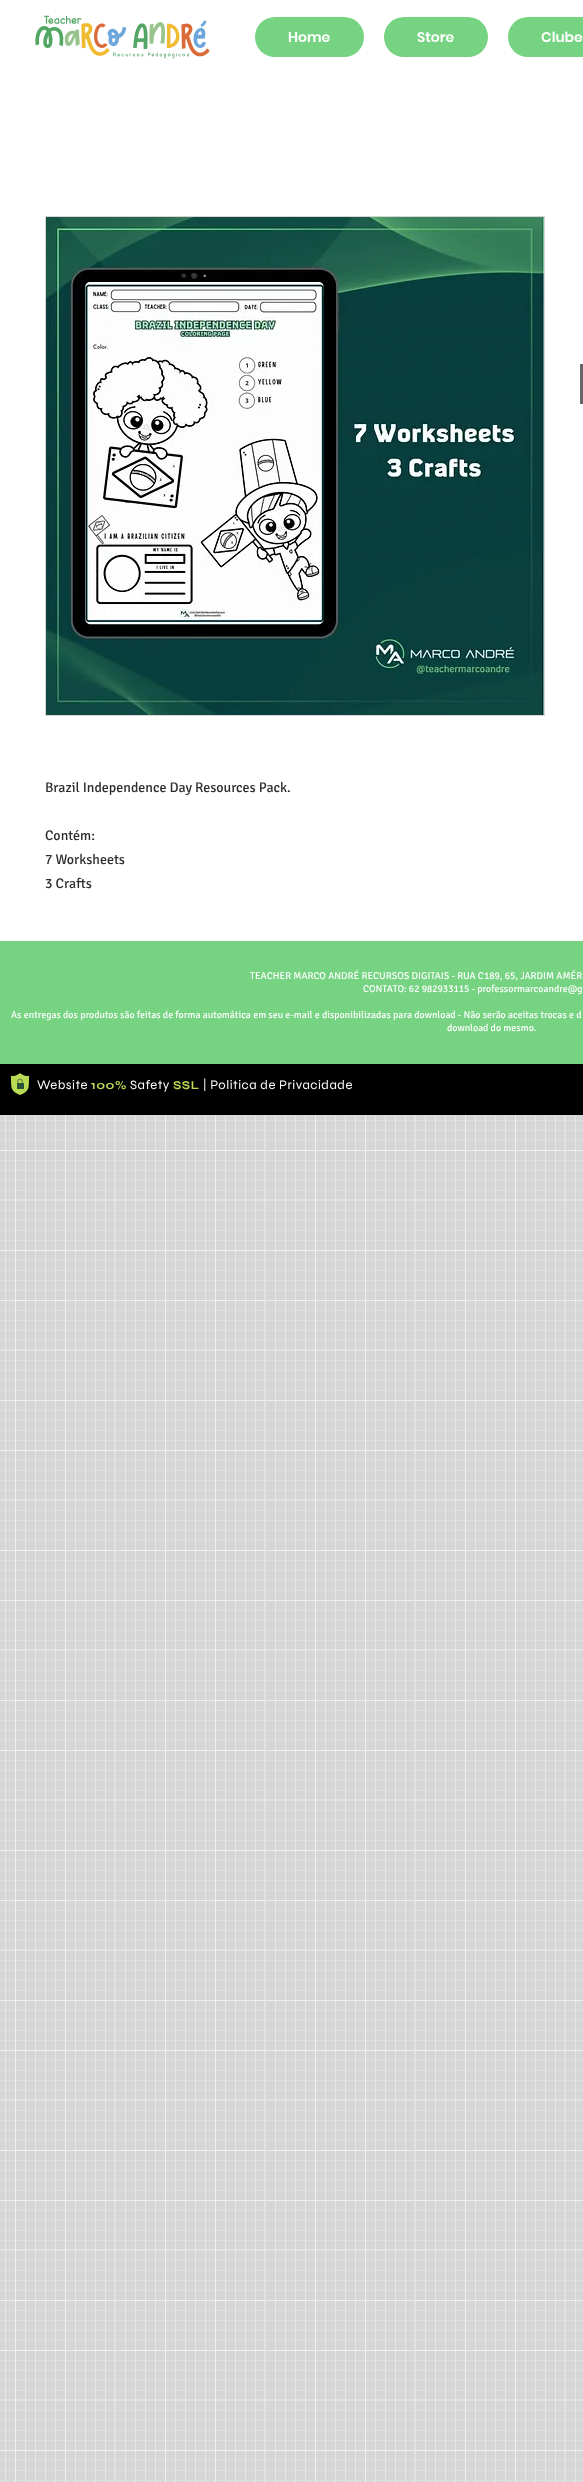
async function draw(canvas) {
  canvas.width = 583;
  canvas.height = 2482;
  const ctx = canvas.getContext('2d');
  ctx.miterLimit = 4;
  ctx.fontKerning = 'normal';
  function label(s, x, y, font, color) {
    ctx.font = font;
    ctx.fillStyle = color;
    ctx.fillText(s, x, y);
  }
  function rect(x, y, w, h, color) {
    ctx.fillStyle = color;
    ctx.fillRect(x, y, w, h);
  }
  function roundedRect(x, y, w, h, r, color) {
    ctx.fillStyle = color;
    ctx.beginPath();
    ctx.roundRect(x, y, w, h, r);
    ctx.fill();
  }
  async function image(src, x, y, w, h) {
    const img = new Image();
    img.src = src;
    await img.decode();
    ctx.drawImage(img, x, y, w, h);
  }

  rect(0, 0, 583, 2482, '#d6d6d6');
  rect(0, 0, 583, 941, '#fff');
  await image('assets/img1.png', 35, 15, 175, 44);
  roundedRect(255, 17, 109, 40, 20, '#76d382');
  label('Home', 288, 42, '600 14px Poppins', '#fff');
  roundedRect(384, 17, 104, 40, 20, '#76d382');
  label('Store', 417, 42, '600 14px Poppins', '#fff');
  roundedRect(508, 17, 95, 40, 20, '#76d382');
  label('Clube', 541, 42, '600 14px Poppins', '#fff');
  rect(580, 364, 3, 40, '#666');
  ctx.strokeStyle = '#d6d6d6';
  ctx.strokeRect(45.5, 216.5, 499, 499);
  await image('assets/img2.png', 46, 217, 498, 498);
  label('Brazil Independence Day Resources Pack.', 45, 792, '14px Signika', '#2d2d2d');
  label('Contém:', 45, 840, '14px Signika', '#2d2d2d');
  label('7 Worksheets', 45, 864, '14px Signika', '#2d2d2d');
  label('3 Crafts', 45, 888, '14px Signika', '#2d2d2d');
  rect(0, 941, 583, 123, '#76d382');
  label('TEACHER MARCO ANDRÉ RECURSOS DIGITAIS - RUA C189, 65, JARDIM AMÉR', 250, 979, '10px Signika', '#fff');
  label('CONTATO: 62 982933115 - professormarcoandre@g', 363, 992, '10px Signika', '#fff');
  label('As entregas dos produtos são feitas de forma automática em seu e-mail e disponibilizadas para download - Não serão aceitas trocas e d', 11, 1018, '10px Signika', '#fff');
  label('download do mesmo.', 447, 1031, '10px Signika', '#fff');
  rect(0, 1064, 583, 51, '#000');
  await image('assets/img3.png', 11, 1073, 18, 22);
  ctx.letterSpacing = '0.5px';
  label('Website', 37, 1089, '13px Syne', '#fff');
  label('100%', 91, 1089, 'bold 12px Syne', '#bada55');
  label('Safety', 130, 1089, '13px Syne', '#fff');
  label('SSL', 173, 1089, 'bold 12px Syne', '#bada55');
  label('| Politica de Privacidade', 203, 1089, '13px Syne', '#fff');
  await image('assets/img4.png', 0, 1115, 583, 1367);
}

draw(document.querySelector('canvas'));
